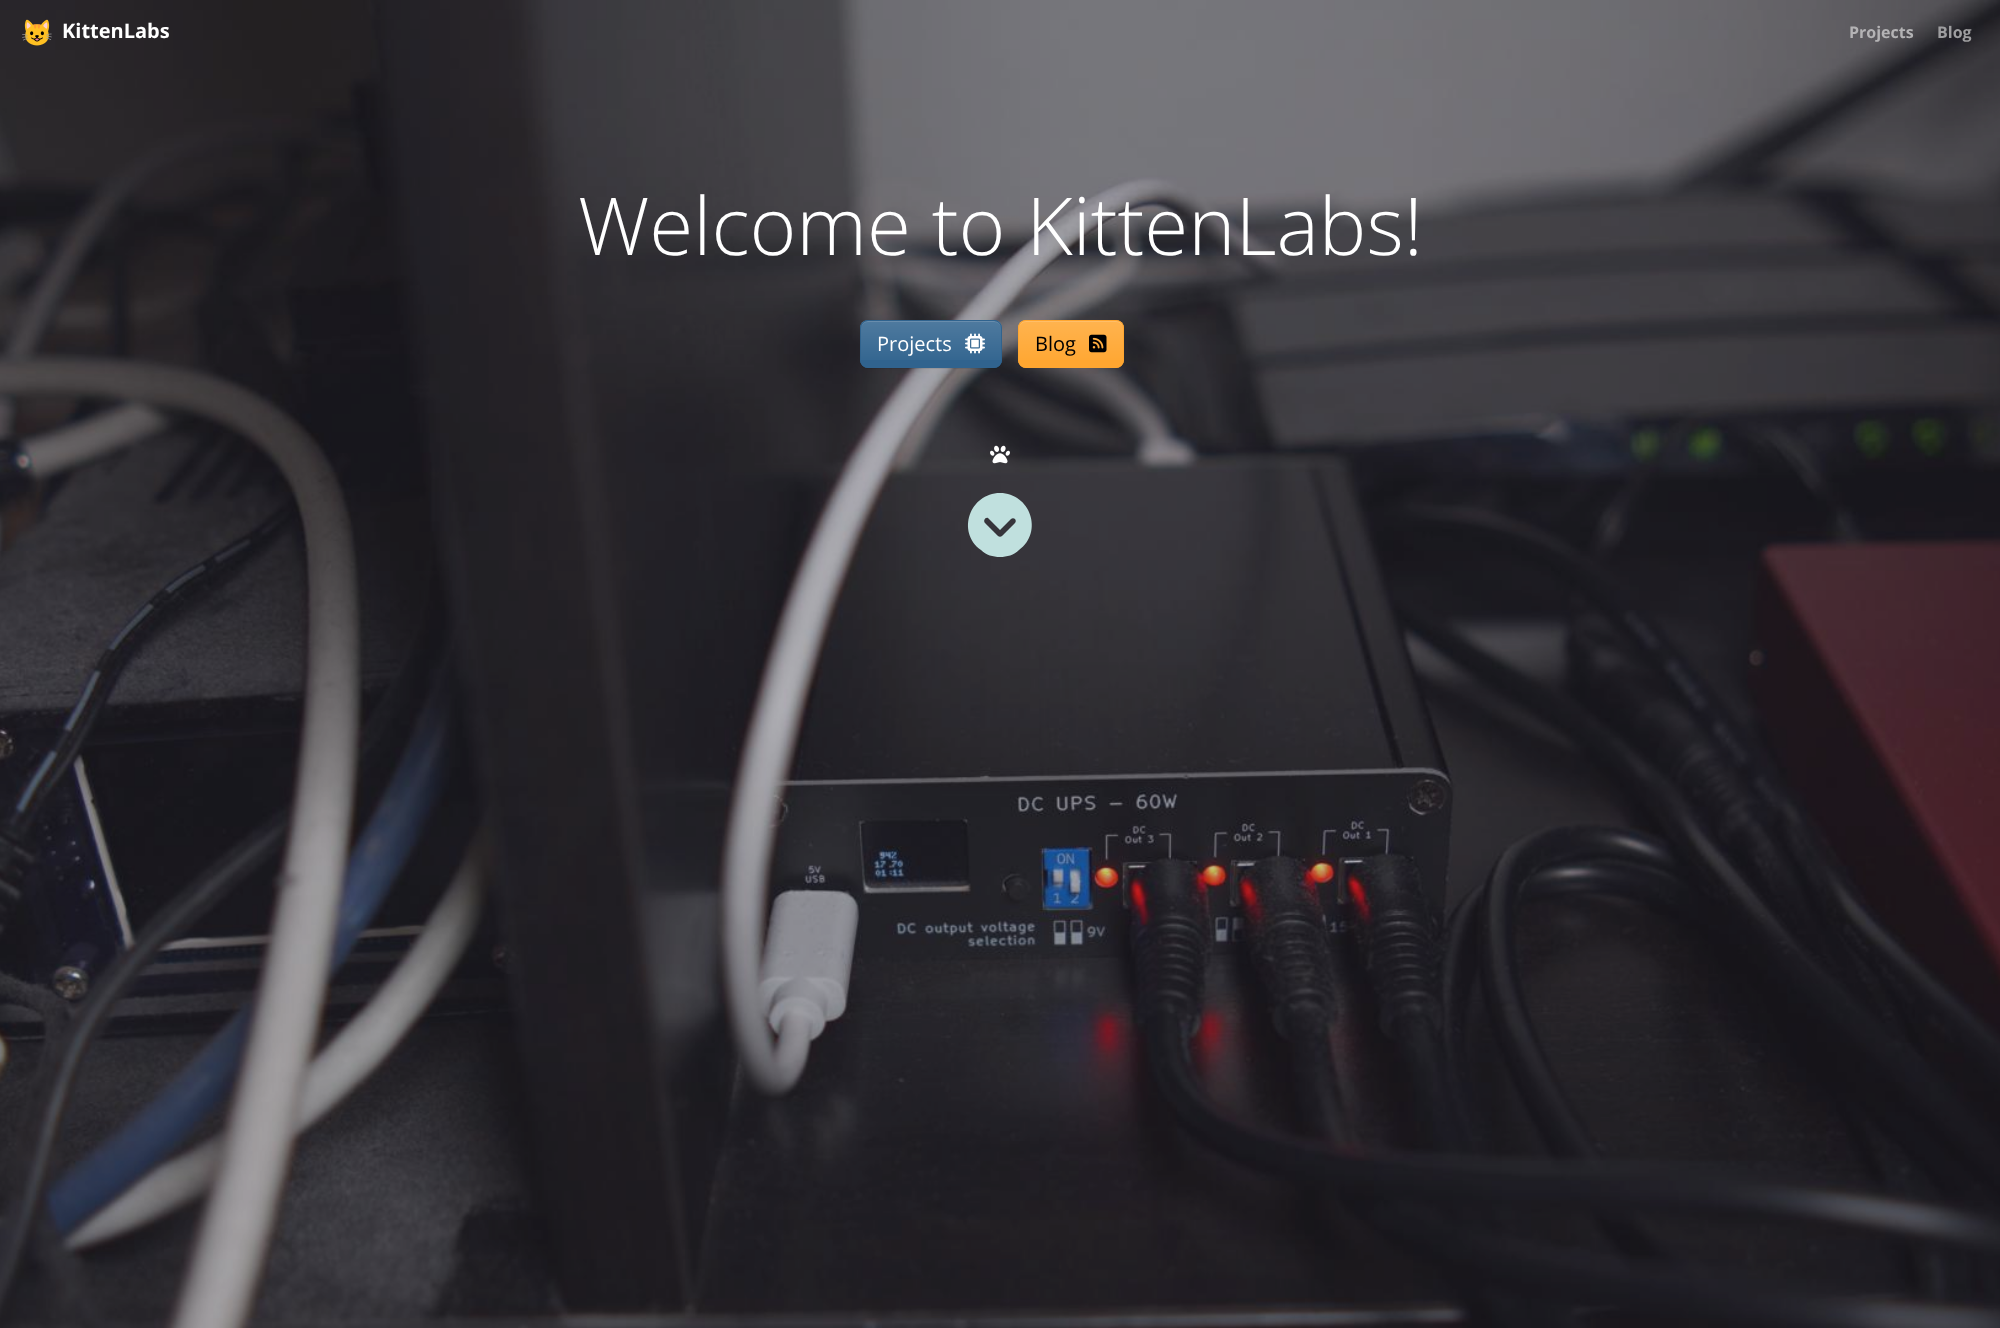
async function draw(canvas) {
  canvas.width = 2000;
  canvas.height = 1328;
  const ctx = canvas.getContext('2d');
  ctx.miterLimit = 4;
  ctx.fontKerning = 'normal';
  function label(s, x, y, font, color) {
    ctx.font = font;
    ctx.fillStyle = color;
    ctx.fillText(s, x, y);
  }
  function rect(x, y, w, h, color) {
    ctx.fillStyle = color;
    ctx.fillRect(x, y, w, h);
  }
  function roundedRect(x, y, w, h, r, color) {
    ctx.fillStyle = color;
    ctx.beginPath();
    ctx.roundRect(x, y, w, h, r);
    ctx.fill();
  }
  async function image(src, x, y, w, h) {
    const img = new Image();
    img.src = src;
    await img.decode();
    ctx.drawImage(img, x, y, w, h);
  }
  let gradient, path;

  rect(0, 0, 2000, 1328, '#fff');
  await image('assets/img2.png', 0, 0, 2000, 1328);
  await image('assets/img1.png', 22, 19, 30, 27);
  label('KittenLabs', 62, 38, 'bold 20px Open Sans', '#fff');
  label('Projects', 1849, 38, 'bold 16px Open Sans', '#b4b3b5');
  label('Blog', 1937, 38, 'bold 16px Open Sans', '#9e9ea0');
  label('Welcome to KittenLabs!', 578, 255, '300 80px Open Sans', '#fff');
  ctx.fillStyle = '#00000012';
  ctx.filter = 'blur(0.5px)';
  ctx.beginPath();
  ctx.roundRect(860, 321, 142, 48, 8);
  ctx.fill();
  ctx.filter = 'none';
  roundedRect(860, 320, 142, 48, 8, '#30638e');
  ctx.save();
  ctx.beginPath();
  ctx.roundRect(860, 320, 142, 48, 8);
  ctx.clip();
  gradient = ctx.createLinearGradient(931, 321, 931, 367);
  gradient.addColorStop(0, '#ffffff26');
  gradient.addColorStop(1, '#ffffff00');
  ctx.fillStyle = gradient;
  ctx.fillRect(860, 321, 142, 39);
  ctx.restore();
  ctx.fillStyle = '#ffffff26';
  path = new Path2D('M868 322H994C998 322 1001 325 1001 329C1001 316 979 321 973 321H889C883 321 861 316 861 329C861 325 864 322 868 322Z');
  ctx.fill(path);
  ctx.beginPath();
  ctx.roundRect(860.5, 320.5, 141, 47, 7.5);
  ctx.strokeStyle = '#30638e';
  ctx.stroke();
  label('Projects', 877, 351, '20px Open Sans', '#fff');
  await image('assets/img3.png', 965, 333, 20, 21);
  roundedRect(1018, 320, 106, 48, 8, '#ffa630');
  ctx.save();
  ctx.beginPath();
  ctx.roundRect(1018, 320, 106, 48, 8);
  ctx.clip();
  gradient = ctx.createLinearGradient(1071, 321, 1071, 367);
  gradient.addColorStop(0, '#ffffff26');
  gradient.addColorStop(1, '#ffffff00');
  ctx.fillStyle = gradient;
  ctx.fillRect(1018, 321, 106, 39);
  ctx.restore();
  ctx.fillStyle = '#ffffff26';
  path = new Path2D('M1026 322H1116C1120 322 1123 325 1123 329C1123 317 1108 321 1101 321H1041C1034 321 1019 317 1019 329C1019 325 1022 322 1026 322Z');
  ctx.fill(path);
  ctx.beginPath();
  ctx.roundRect(1018.5, 320.5, 105, 47, 7.5);
  ctx.strokeStyle = '#ffa630';
  ctx.stroke();
  label('Blog', 1035, 351, '20px Open Sans', '#000');
  await image('assets/img4.png', 1089, 334, 18, 19);
  await image('assets/img5.png', 990, 445, 20, 19);
  ctx.fillStyle = '#c0e0de';
  path = new Path2D('M1000 493C970 493 956 532 981 550C986 555 993 557 1000 557C1007 557 1014 555 1019 550C1044 532 1030 493 1000 493ZM985 523C983 521 985 517 988 518L1000 530L1011 519C1012 518 1014 518 1015 519C1016 520 1016 522 1015 523L1002 536C1001 537 999 537 998 536Z');
  ctx.fill(path);
}

draw(document.querySelector('canvas'));
